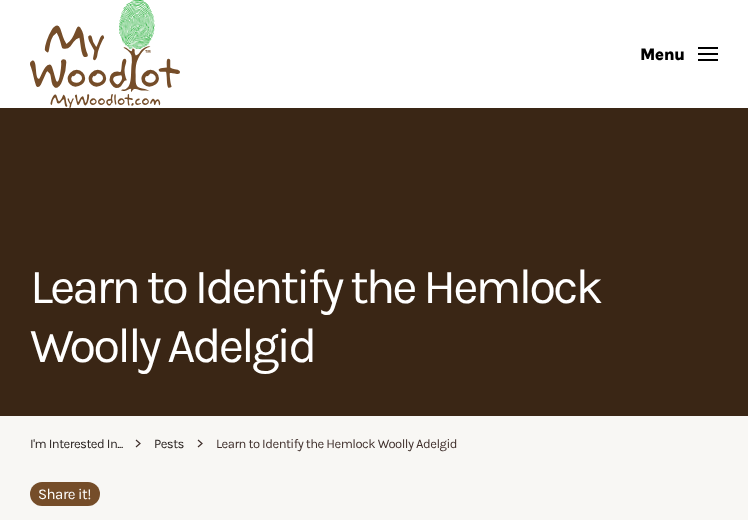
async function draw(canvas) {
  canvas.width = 748;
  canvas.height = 520;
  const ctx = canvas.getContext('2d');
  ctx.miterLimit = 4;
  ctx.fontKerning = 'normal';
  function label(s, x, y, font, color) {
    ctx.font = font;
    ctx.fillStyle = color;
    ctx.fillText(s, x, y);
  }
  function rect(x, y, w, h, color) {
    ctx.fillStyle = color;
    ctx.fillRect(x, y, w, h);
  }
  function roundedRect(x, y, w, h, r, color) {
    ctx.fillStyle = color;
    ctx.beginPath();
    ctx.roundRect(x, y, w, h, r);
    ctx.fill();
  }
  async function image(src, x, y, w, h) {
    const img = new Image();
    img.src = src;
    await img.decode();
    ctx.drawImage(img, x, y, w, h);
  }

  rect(0, 0, 748, 520, '#fff');
  await image('assets/img1.png', 30, 0, 150, 108);
  ctx.letterSpacing = '-0.5px';
  label('Menu', 640, 60, '800 17px Karla', '#000');
  rect(698, 47, 20, 2, '#000');
  rect(698, 53, 20, 2, '#000');
  rect(698, 59, 20, 2, '#000');
  rect(0, 108, 748, 308, '#3a2615');
  ctx.letterSpacing = '-2.95px';
  label('Learn to Identify the Hemlock', 30, 303, '49.1px Karla', '#fff');
  label('Woolly Adelgid', 30, 362, '49.1px Karla', '#fff');
  rect(0, 416, 748, 104, '#f8f7f4');
  ctx.letterSpacing = '-0.5px';
  label('I\'m Interested In...', 30, 448, '13px Karla', '#241d1b');
  await image('assets/img2.png', 135, 439, 6, 9);
  label('Pests', 154, 448, '13px Karla', '#241d1b');
  await image('assets/img2.png', 197, 439, 6, 9);
  label('Learn to Identify the Hemlock Woolly Adelgid', 216, 448, '13px Karla', '#3f2f2b');
  roundedRect(30, 482, 70, 24, 12, '#754d29');
  label('Share it!', 38, 499, '15px Karla', '#fff');
}

draw(document.querySelector('canvas'));
